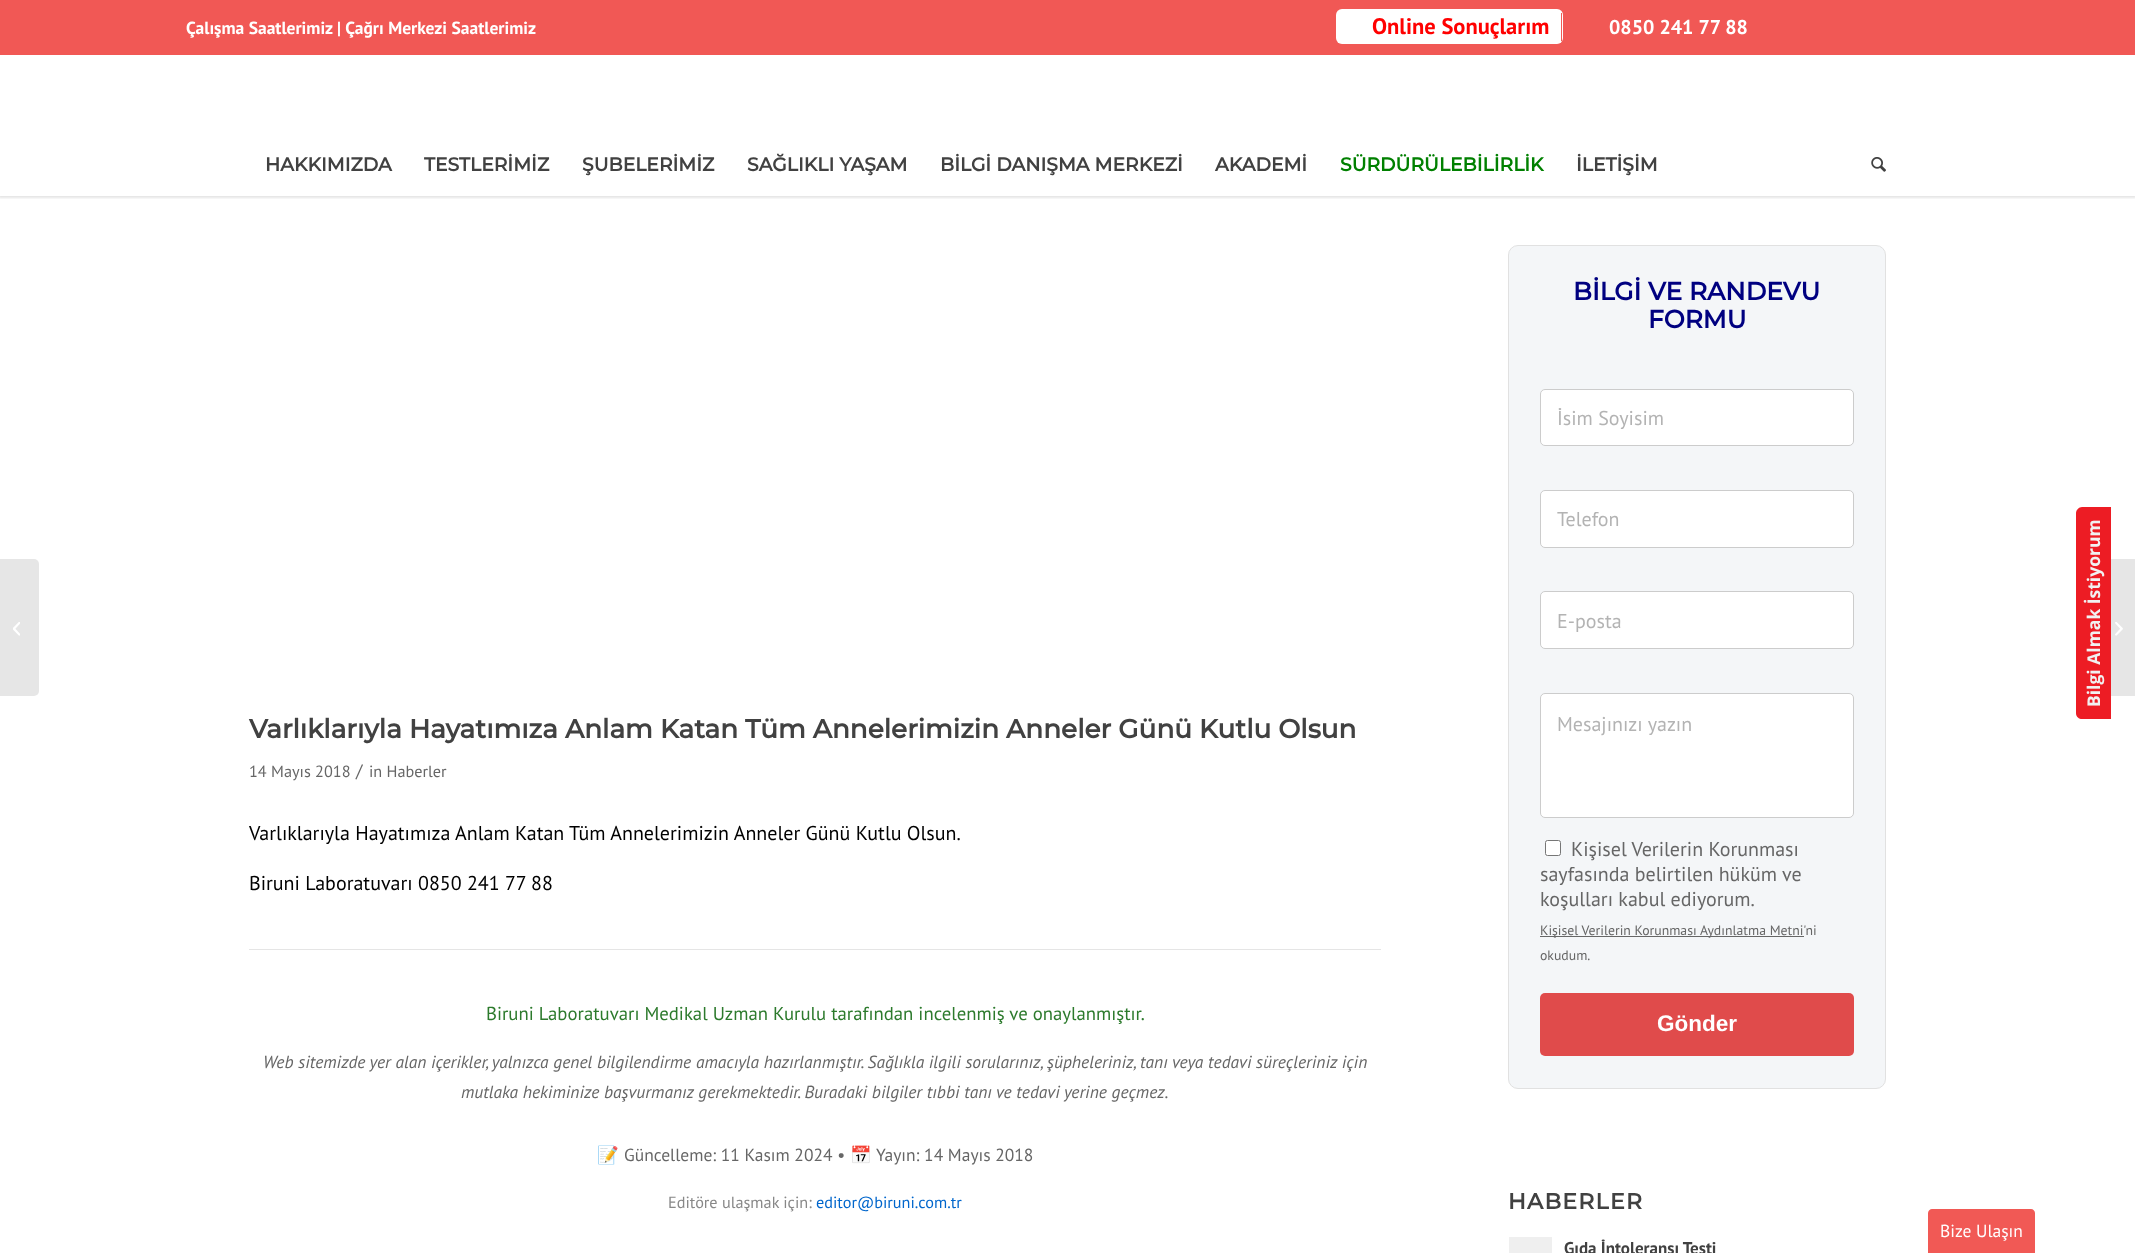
async function draw(canvas) {
  canvas.width = 2135;
  canvas.height = 1253;
  const ctx = canvas.getContext('2d');
  ctx.miterLimit = 4;
  ctx.fontKerning = 'normal';
  function label(s, x, y, font, color) {
    ctx.font = font;
    ctx.fillStyle = color;
    ctx.fillText(s, x, y);
  }
  function rect(x, y, w, h, color) {
    ctx.fillStyle = color;
    ctx.fillRect(x, y, w, h);
  }
  function roundedRect(x, y, w, h, r, color) {
    ctx.fillStyle = color;
    ctx.beginPath();
    ctx.roundRect(x, y, w, h, r);
    ctx.fill();
  }
  async function image(src, x, y, w, h) {
    const img = new Image();
    img.src = src;
    await img.decode();
    ctx.drawImage(img, x, y, w, h);
  }
  let path;

  rect(0, 0, 2135, 1253, '#fff');
  ctx.save();
  ctx.beginPath();
  ctx.rect(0, 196, 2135, 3);
  ctx.clip();
  ctx.fillStyle = '#0000001a';
  ctx.filter = 'blur(1px)';
  ctx.beginPath();
  ctx.rect(-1, -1, 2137, 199);
  ctx.fill();
  ctx.filter = 'none';
  ctx.restore();
  rect(0, 0, 2135, 55, '#f15855');
  label('Çalışma Saatlerimiz | Çağrı Merkezi Saatlerimiz', 186, 34, 'bold 17.5px PT Sans', '#fff');
  roundedRect(1336, 9, 227, 35, 6, '#fff');
  rect(1561, 13, 1, 28, '#f15855');
  label('Online Sonuçlarım', 1372, 34, 'bold 22.5px PT Sans', '#f00');
  label('0850 241 77 88', 1609, 34, 'bold 20px PT Sans', '#fff');
  label('HAKKIMIZDA', 265, 171, 'bold 18.75px Montserrat', '#414141');
  label('TESTLERİMİZ', 424, 171, 'bold 18.75px Montserrat', '#414141');
  label('ŞUBELERİMİZ', 582, 171, 'bold 18.75px Montserrat', '#414141');
  label('SAĞLIKLI YAŞAM', 747, 171, 'bold 18.75px Montserrat', '#414141');
  label('BİLGİ DANIŞMA MERKEZİ', 940, 171, 'bold 18.75px Montserrat', '#414141');
  label('AKADEMİ', 1215, 171, 'bold 18.75px Montserrat', '#414141');
  label('SÜRDÜRÜLEBİLİRLİK', 1340, 171, 'bold 18.75px Montserrat', '#008000');
  label('İLETİŞİM', 1576, 171, 'bold 18.75px Montserrat', '#414141');
  await image('assets/img1.png', 1871, 157, 15, 15);
  ctx.fillStyle = '#e6e6e6';
  ctx.beginPath();
  ctx.roundRect(0, 559, 39, 137, [0, 5, 5, 0]);
  ctx.fill();
  await image('assets/img2.png', 13, 622, 7, 14);
  label('Varlıklarıyla Hayatımıza Anlam Katan Tüm Annelerimizin Anneler Günü Kutlu Olsun', 249, 738, 'bold 26.25px Montserrat', '#414141');
  label('14 Mayıs 2018', 249, 777, '16.25px PT Sans', '#666');
  label('/', 356, 777, '18px PT Sans', '#666');
  label('in Haberler', 369, 777, '16.25px PT Sans', '#666');
  label('Varlıklarıyla Hayatımıza Anlam Katan Tüm Annelerimizin Anneler Günü Kutlu Olsun.', 249, 840, '20px PT Sans', '#000');
  label('Biruni Laboratuvarı 0850 241 77 88', 249, 890, '20px PT Sans', '#000');
  rect(249, 949, 1132, 1, '#e5e5e5');
  label('Biruni Laboratuvarı Medikal Uzman Kurulu tarafından incelenmiş ve onaylanmıştır.', 486, 1020, '18.75px PT Sans', '#2c7a2c');
  label('Web sitemizde yer alan içerikler, yalnızca genel bilgilendirme amacıyla hazırlanmıştır. Sağlıkla ilgili sorularınız, şüpheleriniz, tanı veya tedavi süreçleriniz için', 263, 1068, 'italic 17.5px PT Sans', '#666');
  label('mutlaka hekiminize başvurmanız gerekmektedir. Buradaki bilgiler tıbbi tanı ve tedavi yerine geçmez.', 461, 1098, 'italic 17.5px PT Sans', '#666');
  label('📝', 597, 1161, '17.5px Noto Color Emoji', '#666');
  label('Güncelleme: 11 Kasım 2024 •', 624, 1161, '17.5px PT Sans', '#666');
  label('📅', 850, 1161, '17.5px Noto Color Emoji', '#666');
  label('Yayın: 14 Mayıs 2018', 876, 1161, '17.5px PT Sans', '#666');
  label('Editöre ulaşmak için:', 668, 1208, '16.25px PT Sans', '#888');
  label('editor@biruni.com.tr', 816, 1208, '16.25px PT Sans', '#06c');
  ctx.fillStyle = '#f4f6f8';
  ctx.beginPath();
  ctx.roundRect(1508.5, 245.5, 377, 843, 9.5);
  ctx.fill();
  ctx.strokeStyle = '#e1e1e1';
  ctx.stroke();
  label('BİLGİ VE RANDEVU', 1573, 300, 'bold 25px Montserrat', '#000080');
  label('FORMU', 1648, 328, 'bold 25px Montserrat', '#000080');
  ctx.fillStyle = '#fff';
  ctx.beginPath();
  ctx.roundRect(1540.5, 389.5, 313, 56, 4.5);
  ctx.fill();
  ctx.strokeStyle = '#ccc';
  ctx.stroke();
  label('İsim Soyisim', 1557, 425, '20px PT Sans', '#b3b3b3');
  ctx.fillStyle = '#fff';
  ctx.beginPath();
  ctx.roundRect(1540.5, 490.5, 313, 57, 4.5);
  ctx.fill();
  ctx.stroke();
  label('Telefon', 1557, 526, '20px PT Sans', '#b3b3b3');
  ctx.fillStyle = '#fff';
  ctx.beginPath();
  ctx.roundRect(1540.5, 591.5, 313, 57, 4.5);
  ctx.fill();
  ctx.stroke();
  label('E-posta', 1557, 628, '20px PT Sans', '#b3b3b3');
  ctx.fillStyle = '#fff';
  ctx.beginPath();
  ctx.roundRect(1540.5, 693.5, 313, 124, 4.5);
  ctx.fill();
  ctx.stroke();
  label('Mesajınızı yazın', 1557, 731, '20px PT Sans', '#b3b3b3');
  ctx.fillStyle = '#fff';
  ctx.beginPath();
  ctx.roundRect(1545.5, 840.5, 15, 15, 2);
  ctx.fill();
  ctx.strokeStyle = '#767676';
  ctx.stroke();
  label('Kişisel Verilerin Korunması', 1571, 856, '20px PT Sans', '#666');
  label('sayfasında belirtilen hüküm ve', 1540, 881, '20px PT Sans', '#666');
  label('koşulları kabul ediyorum.', 1540, 906, '20px PT Sans', '#666');
  rect(1540, 936, 264, 1, '#666');
  label('Kişisel Verilerin Korunması Aydınlatma Metni\'ni', 1540, 935, '13.75px PT Sans', '#666');
  label('okudum.', 1540, 960, '13.75px PT Sans', '#666');
  roundedRect(1540, 993, 314, 63, 5, '#e04b4b');
  label('Gönder', 1657, 1031, 'bold 22.5px Liberation Sans', '#fff');
  ctx.letterSpacing = '1.25px';
  label('HABERLER', 1508, 1209, 'bold 22px Montserrat', '#414141');
  rect(1509, 1237, 43, 16, '#efefef');
  ctx.letterSpacing = '0px';
  label('Gıda İntoleransı Testi', 1564, 1254, 'bold 17px PT Sans', '#414141');
  rect(2111, 559, 24, 137, '#e6e6e6');
  await image('assets/img3.png', 2115, 622, 8, 14);
  ctx.fillStyle = '#ed1c24';
  path = new Path2D('M2076 713V513C2076 510 2079 507 2082 507H2111V719H2082C2079 719 2076 717 2076 713Z');
  ctx.fill(path);
  ctx.font = 'bold 17.5px Open Sans';
  ctx.fillStyle = '#f1f1f1';
  ctx.save();
  ctx.translate(2100, 707);
  ctx.rotate(-90 * Math.PI / 180);
  ctx.fillText('Bilgi Almak İstiyorum', 0, 0);
  ctx.restore();
  ctx.fillStyle = '#f15955';
  path = new Path2D('M1932 1209H2031C2033 1209 2035 1211 2035 1213V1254H1928V1213C1928 1211 1930 1209 1932 1209Z');
  ctx.fill(path);
  label('Bize Ulaşın', 1940, 1237, '17.5px PT Sans', '#fff');
}

draw(document.querySelector('canvas'));
